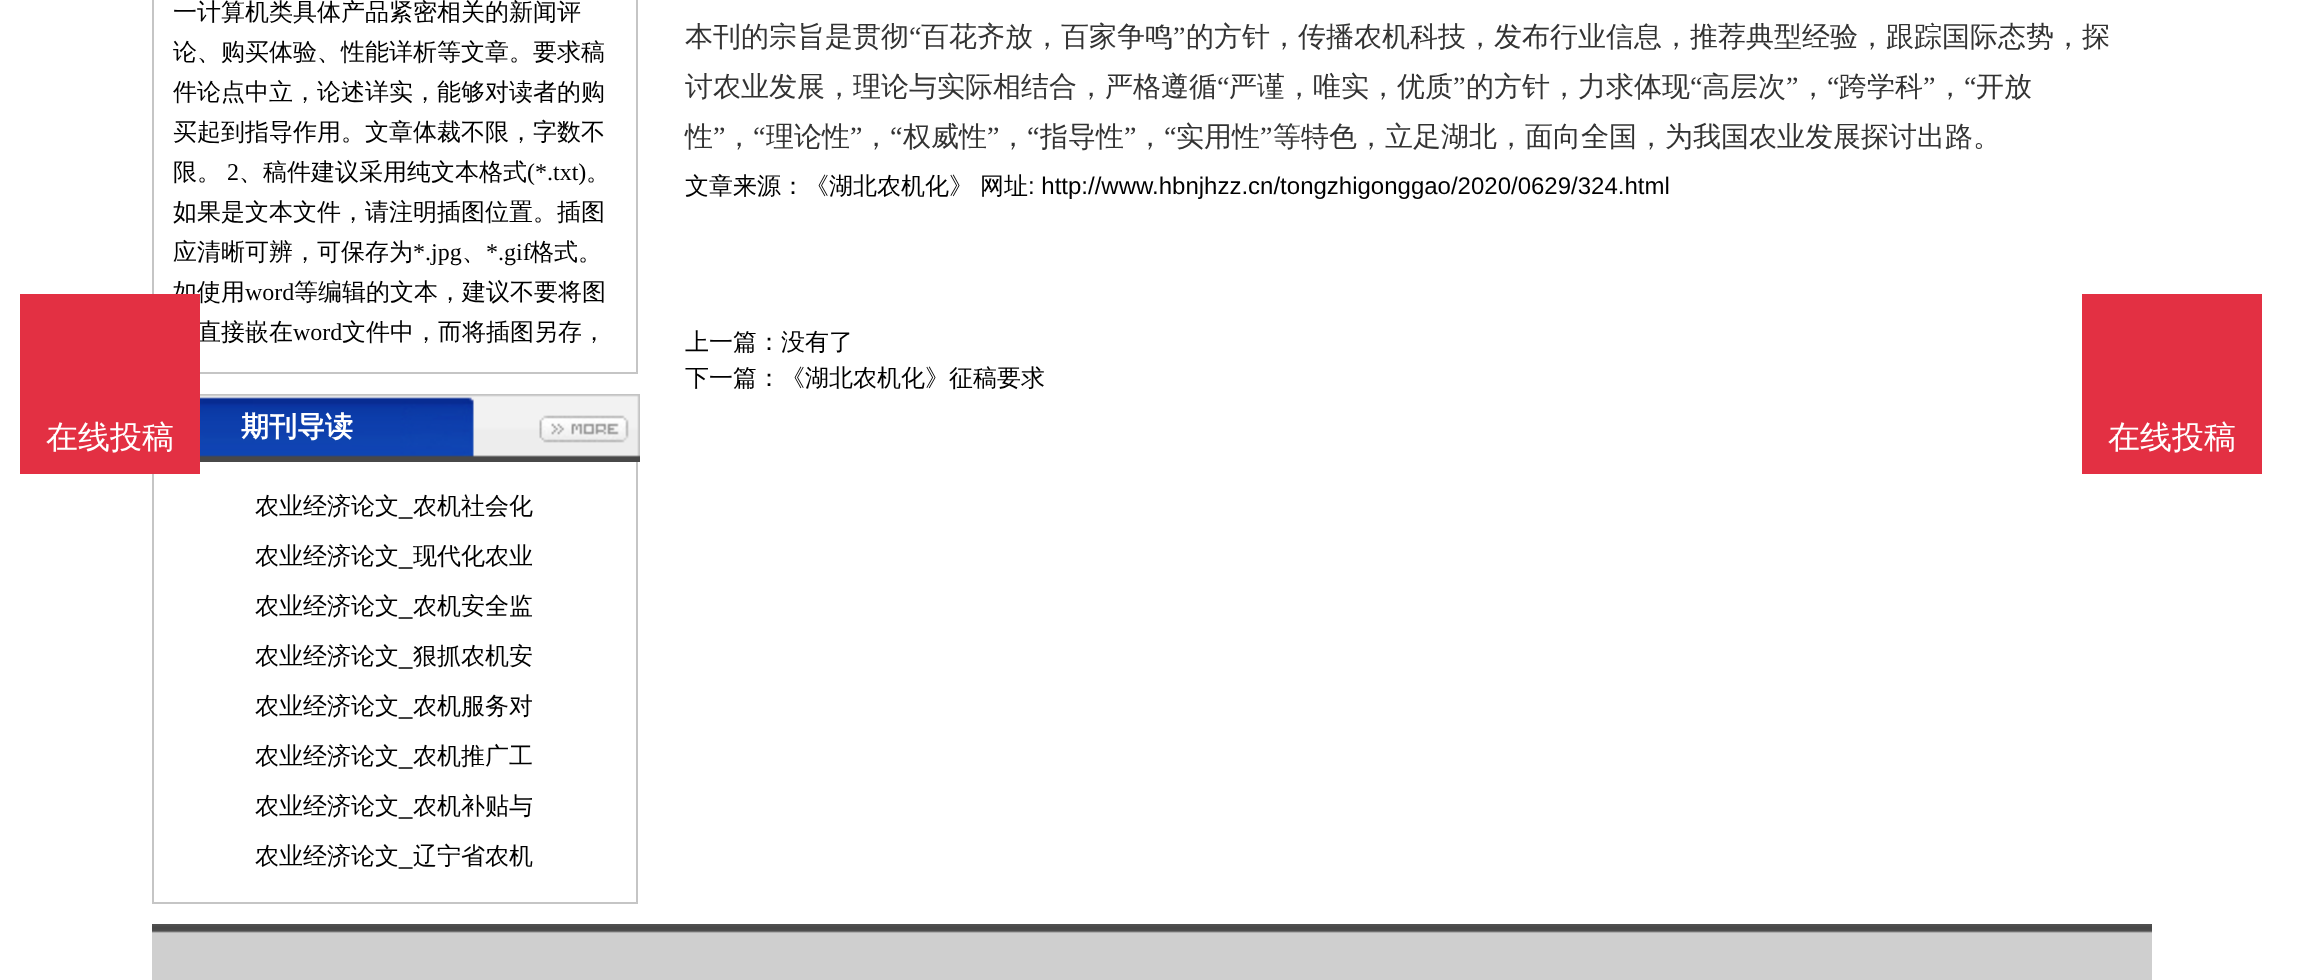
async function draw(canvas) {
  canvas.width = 2301;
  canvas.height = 980;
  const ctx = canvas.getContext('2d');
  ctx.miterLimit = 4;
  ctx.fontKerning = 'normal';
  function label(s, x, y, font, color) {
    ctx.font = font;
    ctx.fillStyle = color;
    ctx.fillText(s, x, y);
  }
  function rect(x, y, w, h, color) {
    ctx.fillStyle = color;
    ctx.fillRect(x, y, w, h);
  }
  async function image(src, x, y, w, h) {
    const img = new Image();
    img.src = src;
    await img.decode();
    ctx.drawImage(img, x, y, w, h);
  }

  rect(0, 0, 2301, 980, '#fff');
  label('如使用', 173, 300, '500 24px WenQuanYi Zen Hei', '#000');
  label('直接嵌在', 197, 340, '500 24px WenQuanYi Zen Hei', '#000');
  rect(20, 294, 180, 180, '#e33043');
  label('在线投稿', 46, 448, '500 32px WenQuanYi Zen Hei', '#fff');
  rect(636, 0, 2, 374, '#c5c5c5');
  rect(200, 372, 438, 2, '#c5c5c5');
  rect(152, 0, 2, 294, '#c5c5c5');
  label('一计算机类具体产品紧密相关的新闻评', 173, 20, '500 24px WenQuanYi Zen Hei', '#000');
  label('论、购买体验、性能详析等文章。要求稿', 173, 60, '500 24px WenQuanYi Zen Hei', '#000');
  label('件论点中立，论述详实，能够对读者的购', 173, 100, '500 24px WenQuanYi Zen Hei', '#000');
  label('买起到指导作用。文章体裁不限，字数不', 173, 140, '500 24px WenQuanYi Zen Hei', '#000');
  label('限。', 173, 180, '500 24px WenQuanYi Zen Hei', '#000');
  label('2', 227, 180, '24px Liberation Serif', '#000');
  label('、稿件建议采用纯文本格式', 239, 180, '500 24px WenQuanYi Zen Hei', '#000');
  label('(*.txt)', 527, 180, '24px Liberation Serif', '#000');
  label('。', 586, 180, '500 24px WenQuanYi Zen Hei', '#000');
  label('如果是文本文件，请注明插图位置。插图', 173, 220, '500 24px WenQuanYi Zen Hei', '#000');
  label('应清晰可辨，可保存为', 173, 260, '500 24px WenQuanYi Zen Hei', '#000');
  label('*.jpg', 413, 260, '24px Liberation Serif', '#000');
  label('、', 462, 260, '500 24px WenQuanYi Zen Hei', '#000');
  label('*.gif', 486, 260, '24px Liberation Serif', '#000');
  label('格式。', 530, 260, '500 24px WenQuanYi Zen Hei', '#000');
  label('word', 245, 300, '24px Liberation Serif', '#000');
  label('等编辑的文本，建议不要将图', 294, 300, '500 24px WenQuanYi Zen Hei', '#000');
  label('word', 293, 340, '24px Liberation Serif', '#000');
  label('文件中，而将插图另存，', 342, 340, '500 24px WenQuanYi Zen Hei', '#000');
  await image('assets/img1.png', 200, 394, 440, 68);
  label('期刊导读', 241, 436, 'bold 28px WenQuanYi Zen Hei', '#fff');
  rect(636, 462, 2, 442, '#c5c5c5');
  rect(152, 902, 486, 2, '#c5c5c5');
  rect(152, 474, 2, 430, '#c5c5c5');
  label('农业经济论文', 255, 514, '500 24px WenQuanYi Zen Hei', '#000');
  label('_', 399, 514, '24px Liberation Sans', '#000');
  label('农机社会化', 413, 514, '500 24px WenQuanYi Zen Hei', '#000');
  label('农业经济论文', 255, 564, '500 24px WenQuanYi Zen Hei', '#000');
  label('_', 399, 564, '24px Liberation Sans', '#000');
  label('现代化农业', 413, 564, '500 24px WenQuanYi Zen Hei', '#000');
  label('农业经济论文', 255, 614, '500 24px WenQuanYi Zen Hei', '#000');
  label('_', 399, 614, '24px Liberation Sans', '#000');
  label('农机安全监', 413, 614, '500 24px WenQuanYi Zen Hei', '#000');
  label('农业经济论文', 255, 664, '500 24px WenQuanYi Zen Hei', '#000');
  label('_', 399, 664, '24px Liberation Sans', '#000');
  label('狠抓农机安', 413, 664, '500 24px WenQuanYi Zen Hei', '#000');
  label('农业经济论文', 255, 714, '500 24px WenQuanYi Zen Hei', '#000');
  label('_', 399, 714, '24px Liberation Sans', '#000');
  label('农机服务对', 413, 714, '500 24px WenQuanYi Zen Hei', '#000');
  label('农业经济论文', 255, 764, '500 24px WenQuanYi Zen Hei', '#000');
  label('_', 399, 764, '24px Liberation Sans', '#000');
  label('农机推广工', 413, 764, '500 24px WenQuanYi Zen Hei', '#000');
  label('农业经济论文', 255, 814, '500 24px WenQuanYi Zen Hei', '#000');
  label('_', 399, 814, '24px Liberation Sans', '#000');
  label('农机补贴与', 413, 814, '500 24px WenQuanYi Zen Hei', '#000');
  label('农业经济论文', 255, 864, '500 24px WenQuanYi Zen Hei', '#000');
  label('_', 399, 864, '24px Liberation Sans', '#000');
  label('辽宁省农机', 413, 864, '500 24px WenQuanYi Zen Hei', '#000');
  label('本刊的宗旨是贯彻', 685, 46, '500 28px WenQuanYi Zen Hei', '#333');
  label('“', 909, 46, '28px Liberation Serif', '#333');
  label('百花齐放，百家争鸣', 921, 46, '500 28px WenQuanYi Zen Hei', '#333');
  label('”', 1173, 46, '28px Liberation Serif', '#333');
  label('的方针，传播农机科技，发布行业信息，推荐典型经验，跟踪国际态势，探', 1186, 46, '500 28px WenQuanYi Zen Hei', '#333');
  label('讨农业发展，理论与实际相结合，严格遵循', 685, 96, '500 28px WenQuanYi Zen Hei', '#333');
  label('“', 1217, 96, '28px Liberation Serif', '#333');
  label('严谨，唯实，优质', 1229, 96, '500 28px WenQuanYi Zen Hei', '#333');
  label('”', 1453, 96, '28px Liberation Serif', '#333');
  label('的方针，力求体现', 1466, 96, '500 28px WenQuanYi Zen Hei', '#333');
  label('“', 1690, 96, '28px Liberation Serif', '#333');
  label('高层次', 1702, 96, '500 28px WenQuanYi Zen Hei', '#333');
  label('”', 1786, 96, '28px Liberation Serif', '#333');
  label('“', 1827, 96, '28px Liberation Serif', '#333');
  label('跨学科', 1839, 96, '500 28px WenQuanYi Zen Hei', '#333');
  label('”', 1923, 96, '28px Liberation Serif', '#333');
  label('“', 1964, 96, '28px Liberation Serif', '#333');
  label('开放', 1976, 96, '500 28px WenQuanYi Zen Hei', '#333');
  label('，', 1799, 96, '500 28px WenQuanYi Zen Hei', '#333');
  label('，', 1936, 96, '500 28px WenQuanYi Zen Hei', '#333');
  label('性', 685, 146, '500 28px WenQuanYi Zen Hei', '#333');
  label('”', 713, 146, '28px Liberation Serif', '#333');
  label('“', 753, 146, '28px Liberation Serif', '#333');
  label('理论性', 766, 146, '500 28px WenQuanYi Zen Hei', '#333');
  label('”', 850, 146, '28px Liberation Serif', '#333');
  label('“', 890, 146, '28px Liberation Serif', '#333');
  label('权威性', 903, 146, '500 28px WenQuanYi Zen Hei', '#333');
  label('”', 987, 146, '28px Liberation Serif', '#333');
  label('“', 1027, 146, '28px Liberation Serif', '#333');
  label('指导性', 1040, 146, '500 28px WenQuanYi Zen Hei', '#333');
  label('”', 1124, 146, '28px Liberation Serif', '#333');
  label('“', 1164, 146, '28px Liberation Serif', '#333');
  label('实用性', 1176, 146, '500 28px WenQuanYi Zen Hei', '#333');
  label('”', 1260, 146, '28px Liberation Serif', '#333');
  label('等特色，立足湖北，面向全国，为我国农业发展探讨出路。', 1273, 146, '500 28px WenQuanYi Zen Hei', '#333');
  label('，', 725, 146, '500 28px WenQuanYi Zen Hei', '#333');
  label('，', 862, 146, '500 28px WenQuanYi Zen Hei', '#333');
  label('，', 999, 146, '500 28px WenQuanYi Zen Hei', '#333');
  label('，', 1136, 146, '500 28px WenQuanYi Zen Hei', '#333');
  label('文章来源：《湖北农机化》', 685, 194, '500 24px WenQuanYi Zen Hei', '#000');
  label('网址', 980, 194, '500 24px WenQuanYi Zen Hei', '#000');
  label(': http://www.hbnjhzz.cn/tongzhigonggao/2020/0629/324.html', 1028, 194, '24px Liberation Sans', '#000');
  label('上一篇：没有了', 685, 350, '500 24px WenQuanYi Zen Hei', '#000');
  label('下一篇：《湖北农机化》征稿要求', 685, 386, '500 24px WenQuanYi Zen Hei', '#000');
  rect(2082, 294, 180, 180, '#e33043');
  label('在线投稿', 2108, 448, '500 32px WenQuanYi Zen Hei', '#fff');
  await image('assets/img2.png', 152, 924, 2000, 56);
}

draw(document.querySelector('canvas'));
